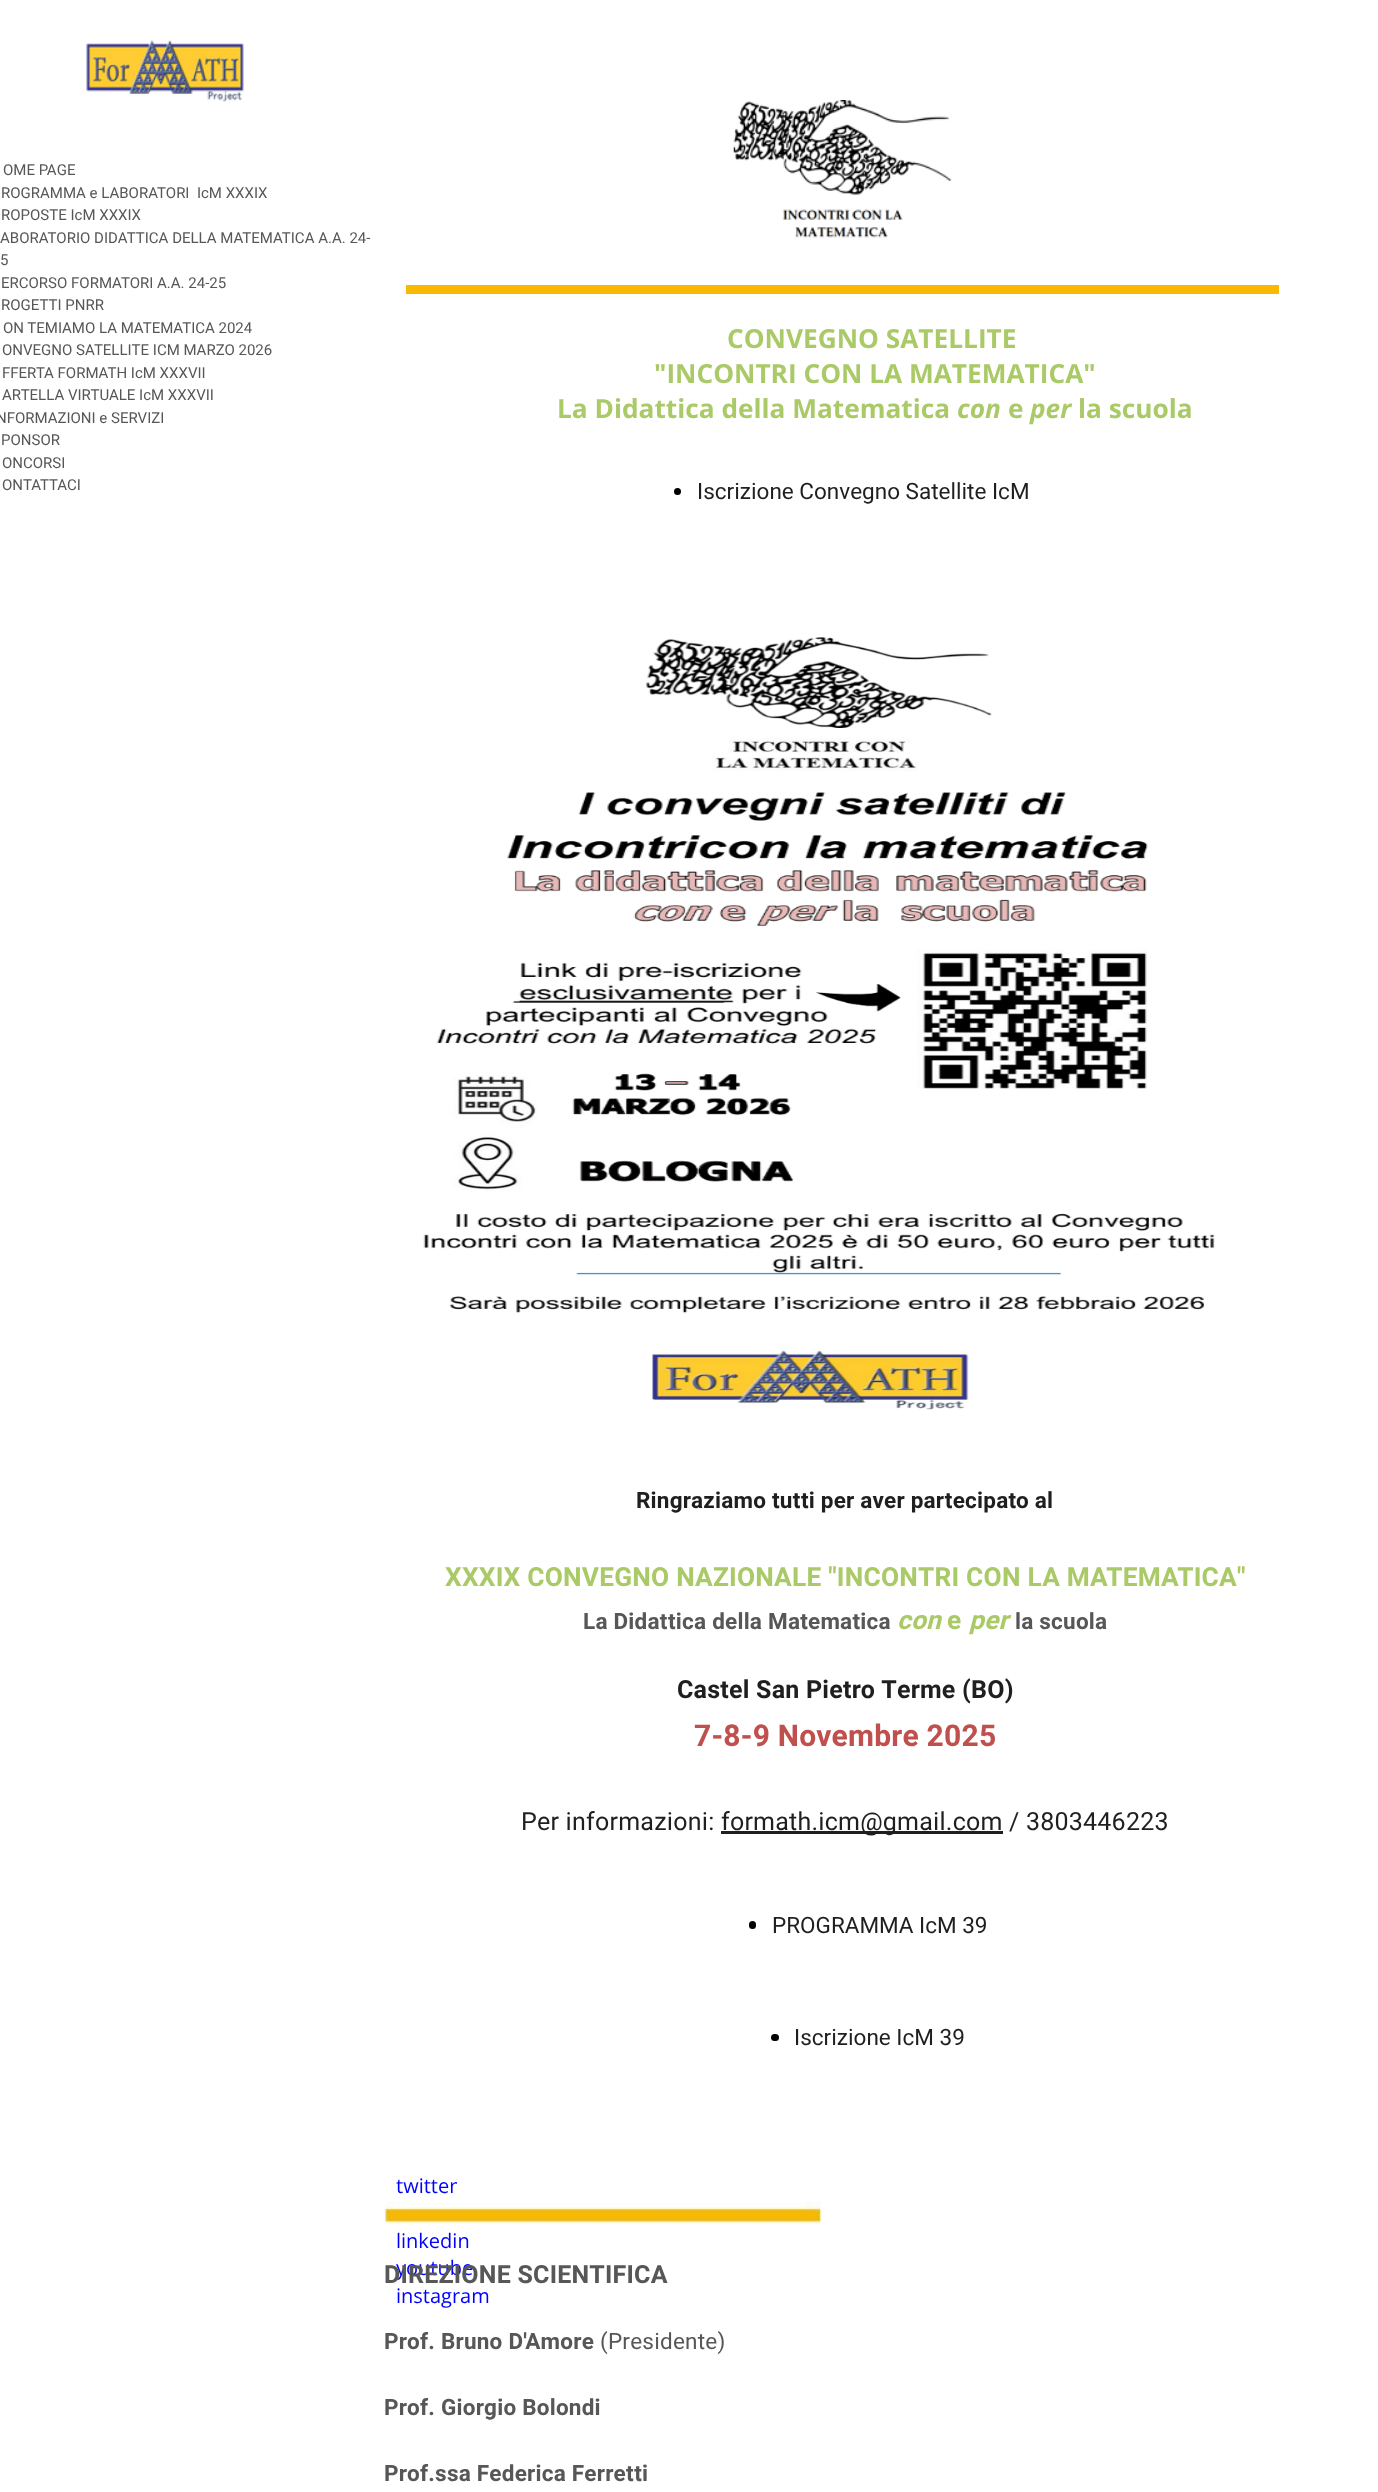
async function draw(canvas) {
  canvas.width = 1378;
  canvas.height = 2492;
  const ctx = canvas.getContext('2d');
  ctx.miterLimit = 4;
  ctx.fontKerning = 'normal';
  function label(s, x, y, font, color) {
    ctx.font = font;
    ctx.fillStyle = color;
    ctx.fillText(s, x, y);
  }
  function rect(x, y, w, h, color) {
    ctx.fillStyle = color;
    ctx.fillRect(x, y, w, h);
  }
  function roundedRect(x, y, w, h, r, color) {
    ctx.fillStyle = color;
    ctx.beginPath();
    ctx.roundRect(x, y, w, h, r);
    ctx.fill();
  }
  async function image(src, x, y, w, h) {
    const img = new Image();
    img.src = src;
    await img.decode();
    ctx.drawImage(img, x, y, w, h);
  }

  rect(0, 0, 1378, 2492, '#fff');
  await image('assets/img1.png', 86, 40, 158, 62);
  label('OME PAGE', 3, 175, '15px Heebo', '#575757');
  label('ROGRAMMA e LABORATORI  IcM XXXIX', 1, 198, '15px Heebo', '#575757');
  label('ROPOSTE IcM XXXIX', 1, 220, '15px Heebo', '#575757');
  label('ABORATORIO DIDATTICA DELLA MATEMATICA A.A. 24-', 0, 243, '15px Heebo', '#575757');
  label('5', 0, 265, '15px Heebo', '#575757');
  label('ERCORSO FORMATORI A.A. 24-25', 1, 288, '15px Heebo', '#575757');
  label('ROGETTI PNRR', 1, 310, '15px Heebo', '#575757');
  label('ON TEMIAMO LA MATEMATICA 2024', 3, 333, '15px Heebo', '#575757');
  label('ONVEGNO SATELLITE ICM MARZO 2026', 2, 355, '15px Heebo', '#575757');
  label('FFERTA FORMATH IcM XXXVII', 2, 378, '15px Heebo', '#575757');
  label('ARTELLA VIRTUALE IcM XXXVII', 2, 400, '15px Heebo', '#575757');
  label('NFORMAZIONI e SERVIZI', -4, 423, '15px Heebo', '#575757');
  label('PONSOR', 1, 445, '15px Heebo', '#575757');
  label('ONCORSI', 2, 468, '15px Heebo', '#575757');
  label('ONTATTACI', 2, 490, '15px Heebo', '#575757');
  await image('assets/img2.png', 733, 100, 219, 138);
  rect(406, 285, 873, 9, '#f9b900');
  label('CONVEGNO SATELLITE', 727, 348, 'bold 26.25px Open Sans', '#aac967');
  label('"INCONTRI CON LA MATEMATICA"', 654, 383, 'bold 26.25px Open Sans', '#aac967');
  label('La Didattica della Matematica', 557, 418, 'bold 26.25px Open Sans', '#aac967');
  label('con', 957, 418, 'italic bold 26.25px Open Sans', '#aac967');
  label('e', 1008, 418, 'bold 26.25px Open Sans', '#aac967');
  label('per', 1030, 418, 'italic bold 26.25px Open Sans', '#aac967');
  label('la scuola', 1078, 418, 'bold 26.25px Open Sans', '#aac967');
  ctx.fillStyle = '#000';
  ctx.beginPath();
  ctx.arc(677.5, 491.5, 3.5, 0, 2 * Math.PI);
  ctx.fill();
  label('Iscrizione Convegno Satellite IcM', 697, 499, '22.5px Heebo', '#1f1f1f');
  await image('assets/img3.png', 423, 637, 792, 773);
  ctx.letterSpacing = '0.22px';
  label('Ringraziamo tutti per aver partecipato al', 636, 1508, 'bold 22.5px Heebo', '#1f1f1f');
  label('XXXIX CONVEGNO NAZIONALE "INCONTRI CON LA MATEMATICA"', 445, 1586, 'bold 26.25px Heebo', '#aac967');
  label('La Didattica della Matematica', 583, 1629, 'bold 22.5px Heebo', '#575757');
  label('con', 897, 1629, 'italic bold 26.25px Heebo', '#aac967');
  label('e', 947, 1629, 'bold 26.25px Heebo', '#aac967');
  label('per', 969, 1629, 'italic bold 26.25px Heebo', '#aac967');
  label('la scuola', 1015, 1629, 'bold 22.5px Heebo', '#575757');
  label('Castel San Pietro Terme (BO)', 677, 1698, 'bold 25px Heebo', '#1f1f1f');
  label('7-8-9 Novembre 2025', 694, 1746, 'bold 30px Heebo', '#c0504d');
  label('Per informazioni:', 521, 1830, '25px Heebo', '#1f1f1f');
  rect(721, 1831, 282, 3, '#1f1f1f');
  label('formath.icm@gmail.com / 3803446223', 721, 1830, '25px Heebo', '#1f1f1f');
  roundedRect(749, 1921, 7, 8, 3.5, '#000');
  ctx.letterSpacing = '0px';
  label('PROGRAMMA IcM 39', 772, 1933, '22.5px Heebo', '#1f1f1f');
  roundedRect(771, 2034, 8, 7, 3.5, '#000');
  label('Iscrizione IcM 39', 794, 2045, '22.5px Heebo', '#1f1f1f');
  label('twitter', 396, 2193, '20px Open Sans', '#00f');
  label('linkedin', 396, 2248, '20px Open Sans', '#00f');
  label('youtube', 396, 2275, '20px Open Sans', '#00f');
  label('instagram', 396, 2303, '20px Open Sans', '#00f');
  await image('assets/img4.png', 385, 2201, 437, 23);
  ctx.letterSpacing = '0.22px';
  label('DIREZIONE SCIENTIFICA', 384, 2283, 'bold 25px Heebo', '#575757');
  label('Prof. Bruno D\'Amore', 384, 2349, 'bold 22.5px Heebo', '#575757');
  label('(Presidente)', 600, 2349, '22.5px Heebo', '#575757');
  label('Prof. Giorgio Bolondi', 384, 2415, 'bold 22.5px Heebo', '#575757');
  label('Prof.ssa Federica Ferretti', 384, 2481, 'bold 22.5px Heebo', '#575757');
}

draw(document.querySelector('canvas'));
